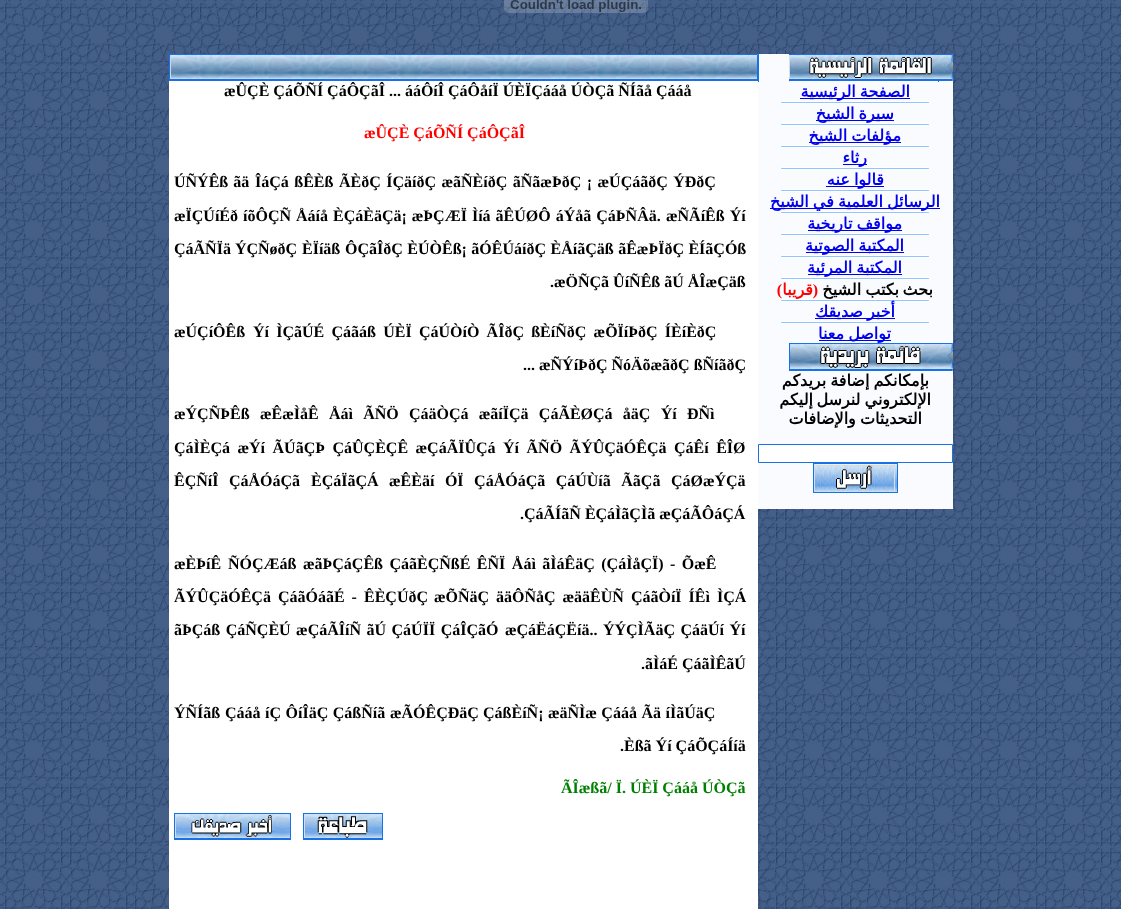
async function draw(canvas) {
  canvas.width = 1121;
  canvas.height = 909;
  const ctx = canvas.getContext('2d');
  ctx.miterLimit = 4;
  ctx.fontKerning = 'normal';
  function label(s, x, y, font, color) {
    ctx.font = font;
    ctx.fillStyle = color;
    ctx.fillText(s, x, y);
  }
  function rect(x, y, w, h, color) {
    ctx.fillStyle = color;
    ctx.fillRect(x, y, w, h);
  }
  async function image(src, x, y, w, h) {
    const img = new Image();
    img.src = src;
    await img.decode();
    ctx.drawImage(img, x, y, w, h);
  }

  rect(0, 0, 1121, 909, '#fff');
  await image('assets/img1.png', 0, 0, 1121, 909);
  await image('assets/img2.png', 504, 0, 144, 13);
  rect(169, 54, 589, 855, '#fff');
  await image('assets/img3.png', 169, 54, 589, 27);
  label('æÛÇÈ ÇáÕÑÍ ÇáÔÇãÎ ... ááÔíÎ ÇáÔåíÏ ÚÈÏÇááå ÚÒÇã ÑÍãå Çááå', 224, 96, 'bold 16px Liberation Serif', '#000');
  label('æÛÇÈ ÇáÕÑÍ ÇáÔÇãÎ', 364, 138, 'bold 16px Liberation Serif', '#f00');
  ctx.wordSpacing = '1px';
  label('ÚÑÝÊß ãä', 174, 187, 'bold 16px Liberation Serif', '#000');
  ctx.wordSpacing = '1.5px';
  label('ÎáÇá ßÊÈß ÃÈðÇ ÍÇäíðÇ æãÑÈíðÇ ãÑãæÞðÇ ¡ æÚÇáãðÇ ÝÐðÇ', 255, 187, 'bold 16px Liberation Serif', '#000');
  ctx.wordSpacing = '1px';
  label('æÏÇÚíÉð íõÔÇÑ Åáíå ÈÇáÈäÇä¡ æÞÇÆÏ Ìíá ãÊÚØÔ áÝåã ÇáÞÑÂä.', 174, 221, 'bold 16px Liberation Serif', '#000');
  label('æÑÃíÊß Ýí', 666, 221, 'bold 16px Liberation Serif', '#000');
  ctx.wordSpacing = '0px';
  label('ÇáÃÑÏä ÝÇÑøðÇ', 174, 254, 'bold 16px Liberation Serif', '#000');
  label('ÈÏíäß', 302, 254, 'bold 16px Liberation Serif', '#000');
  ctx.wordSpacing = '0.5px';
  label('ÔÇãÎðÇ ÈÚÒÊß¡ ãÓÊÚáíðÇ ÈÅíãÇäß ãÊæÞÏðÇ ÈÍãÇÓß', 345, 254, 'bold 16px Liberation Serif', '#000');
  ctx.wordSpacing = '0px';
  label('.', 550, 287, 'bold 16px Liberation Serif', '#000');
  label('æÖÑÇã ÛíÑÊß ãÚ ÅÎæÇäß', 554, 287, 'bold 16px Liberation Serif', '#000');
  label('æÚÇíÔÊß', 174, 337, 'bold 16px Liberation Serif', '#000');
  ctx.wordSpacing = '3.25px';
  label('Ýí ÌÇãÚÉ Çáãáß ÚÈÏ ÇáÚÒíÒ ÃÎðÇ ßÈíÑðÇ æÕÏíÞðÇ ÍÈíÈðÇ', 253, 337, 'bold 16px Liberation Serif', '#000');
  ctx.wordSpacing = '0px';
  label('...', 523, 370, 'bold 16px Liberation Serif', '#000');
  label('æÑÝíÞðÇ ÑóÄõæãðÇ ßÑíãðÇ', 539, 370, 'bold 16px Liberation Serif', '#000');
  label('æÝÇÑÞÊß', 174, 419, 'bold 16px Liberation Serif', '#000');
  ctx.wordSpacing = '6.25px';
  label('æÊæÌåÊ Åáì ÃÑÖ ÇáäÒÇá æãíÏÇä ÇáÃÈØÇá åäÇ Ýí ÐÑì', 260, 419, 'bold 16px Liberation Serif', '#000');
  ctx.wordSpacing = '3.5px';
  label('ÇáÌÈÇá æÝí ÃÚãÇÞ ÇáÛÇÈÇÊ æÇáÃÏÛÇá Ýí ÃÑÖ ÃÝÛÇäÓÊÇä ÇáÊí ÊÎØ', 174, 453, 'bold 16px Liberation Serif', '#000');
  ctx.wordSpacing = '6.5px';
  label('ÊÇÑíÎ ÇáÅÓáÇã', 174, 486, 'bold 16px Liberation Serif', '#000');
  label('ÈÇáÏãÇÁ æÊÈäí ÓÏ ÇáÅÓáÇã ÇáÚÙíã ÃãÇã ÇáØæÝÇä', 311, 486, 'bold 16px Liberation Serif', '#000');
  ctx.wordSpacing = '0px';
  label('.', 520, 519, 'bold 16px Liberation Serif', '#000');
  label('ÇáÃÍãÑ ÈÇáÌãÇÌã æÇáÃÔáÇÁ', 524, 519, 'bold 16px Liberation Serif', '#000');
  label('æÈÞíÊ', 174, 569, 'bold 16px Liberation Serif', '#000');
  ctx.wordSpacing = '2.5px';
  label('ÑÓÇÆáß æãÞÇáÇÊß ÇáãÈÇÑßÉ ÊÑÏ Åáì ãÌáÊäÇ (ÇáÌåÇÏ) - ÕæÊ', 228, 569, 'bold 16px Liberation Serif', '#000');
  ctx.wordSpacing = '3px';
  label('ÃÝÛÇäÓÊÇä ÇáãÓáãÉ -', 174, 602, 'bold 16px Liberation Serif', '#000');
  ctx.wordSpacing = '0px';
  label('ÊÈÇÚðÇ', 364, 602, 'bold 16px Liberation Serif', '#000');
  label('æÕÑäÇ', 434, 602, 'bold 16px Liberation Serif', '#000');
  ctx.wordSpacing = '3px';
  label('ääÔÑåÇ æääÊÙÑ ÇáãÒíÏ ÍÊì ÌÇÁ', 496, 602, 'bold 16px Liberation Serif', '#000');
  ctx.wordSpacing = '1.5px';
  label('ãÞÇáß ÇáÑÇÈÚ æÇáÃÎíÑ ãÚ ÇáÚÏÏ ÇáÎÇãÓ', 174, 635, 'bold 16px Liberation Serif', '#000');
  label('æÇáËáÇËíä.. ÝÝÇÌÃäÇ ÇáäÚí Ýí', 505, 635, 'bold 16px Liberation Serif', '#000');
  ctx.wordSpacing = '0px';
  label('.', 641, 669, 'bold 16px Liberation Serif', '#000');
  label('ãÌáÉ ÇáãÌÊãÚ', 645, 669, 'bold 16px Liberation Serif', '#000');
  label('ÝÑÍãß', 174, 718, 'bold 16px Liberation Serif', '#000');
  ctx.wordSpacing = '0.5px';
  label('Çááå íÇ ÔíÎäÇ ÇáßÑíã', 225, 718, 'bold 16px Liberation Serif', '#000');
  ctx.wordSpacing = '0px';
  label('æÃÓÊÇÐäÇ', 390, 718, 'bold 16px Liberation Serif', '#000');
  ctx.wordSpacing = '0.5px';
  label('ÇáßÈíÑ¡ æäÑÌæ Çááå Ãä íÌãÚäÇ', 483, 718, 'bold 16px Liberation Serif', '#000');
  ctx.wordSpacing = '0px';
  label('.', 620, 751, 'bold 16px Liberation Serif', '#000');
  label('Èßã Ýí ÇáÕÇáÍíä', 624, 751, 'bold 16px Liberation Serif', '#000');
  label('ÃÎæßã/ Ï. ÚÈÏ Çááå ÚÒÇã', 561, 793, 'bold 16px Liberation Serif', '#008000');
  await image('assets/img4.png', 174, 813, 117, 27);
  await image('assets/img5.png', 303, 813, 80, 27);
  await image('assets/img6.png', 758, 54, 195, 28);
  await image('assets/img7.png', 789, 54, 164, 28);
  rect(758, 82, 195, 427, '#f9fbff');
  rect(800, 98, 110, 1, '#00e');
  ctx.wordSpacing = '-1px';
  ctx.direction = 'rtl';
  label('الصفحة الرئيسية', 910, 97, 'bold 16px DejaVu Sans', '#00e');
  await image('assets/img8.png', 780, 101, 150, 3);
  rect(816, 120, 78, 1, '#00e');
  label('سيرة الشيخ', 894, 119, 'bold 16px DejaVu Sans', '#00e');
  await image('assets/img8.png', 780, 123, 150, 3);
  rect(809, 142, 92, 1, '#00e');
  label('مؤلفات الشيخ', 901, 141, 'bold 16px DejaVu Sans', '#00e');
  await image('assets/img8.png', 780, 145, 150, 3);
  rect(843, 164, 24, 1, '#00e');
  ctx.wordSpacing = '0px';
  label('رثاء', 867, 163, 'bold 16px DejaVu Sans', '#00e');
  await image('assets/img8.png', 780, 167, 150, 3);
  rect(826, 186, 58, 1, '#00e');
  ctx.wordSpacing = '-1px';
  label('قالوا عنه', 884, 185, 'bold 16px DejaVu Sans', '#00e');
  await image('assets/img8.png', 780, 189, 150, 3);
  rect(770, 208, 170, 1, '#00e');
  label('الرسائل العلمية في الشيخ', 940, 207, 'bold 16px DejaVu Sans', '#00e');
  await image('assets/img8.png', 780, 211, 150, 3);
  rect(808, 230, 94, 1, '#00e');
  label('مواقف تاريخية', 902, 229, 'bold 16px DejaVu Sans', '#00e');
  await image('assets/img8.png', 780, 233, 150, 3);
  rect(806, 252, 98, 1, '#00e');
  label('المكتبة الصوتية', 904, 251, 'bold 16px DejaVu Sans', '#00e');
  await image('assets/img8.png', 780, 255, 150, 3);
  rect(808, 274, 94, 1, '#00e');
  label('المكتبة المرئية', 902, 273, 'bold 16px DejaVu Sans', '#00e');
  await image('assets/img8.png', 780, 277, 150, 3);
  ctx.wordSpacing = '0px';
  label(')', 782, 295, 'bold 16px Liberation Serif', '#f00');
  label('قريبا', 813, 295, 'bold 16px DejaVu Sans', '#f00');
  label('(', 818, 295, 'bold 16px Liberation Serif', '#f00');
  ctx.wordSpacing = '-1px';
  label('بكتب الشيخ', 899, 295, 'bold 16px DejaVu Sans', '#000');
  ctx.wordSpacing = '0px';
  label('بحث', 933, 295, 'bold 16px DejaVu Sans', '#000');
  await image('assets/img8.png', 780, 299, 150, 3);
  rect(815, 318, 80, 1, '#00e');
  ctx.wordSpacing = '-1px';
  label('أخبر صديقك', 895, 317, 'bold 16px DejaVu Sans', '#00e');
  await image('assets/img8.png', 780, 321, 150, 3);
  rect(819, 340, 72, 1, '#00e');
  label('تواصل معنا', 891, 339, 'bold 16px DejaVu Sans', '#00e');
  await image('assets/img9.png', 789, 343, 164, 28);
  label('بإمكانكم إضافة بريدكم', 929, 386, 'bold 16px DejaVu Sans', '#000');
  ctx.wordSpacing = '0px';
  label('إليكم', 813, 405, 'bold 16px DejaVu Sans', '#000');
  ctx.wordSpacing = '-1px';
  label('الإلكتروني لنرسل', 931, 405, 'bold 16px DejaVu Sans', '#000');
  label('التحديثات والإضافات', 922, 424, 'bold 16px DejaVu Sans', '#000');
  ctx.fillStyle = '#fff';
  ctx.beginPath();
  ctx.rect(758.5, 444.5, 194, 18);
  ctx.fill();
  ctx.strokeStyle = '#1672e6';
  ctx.stroke();
  rect(814, 464, 83, 28, '#efefef');
  await image('assets/img10.png', 814, 464, 83, 28);
  ctx.strokeRect(813.5, 463.5, 84, 29);
}

draw(document.querySelector('canvas'));
